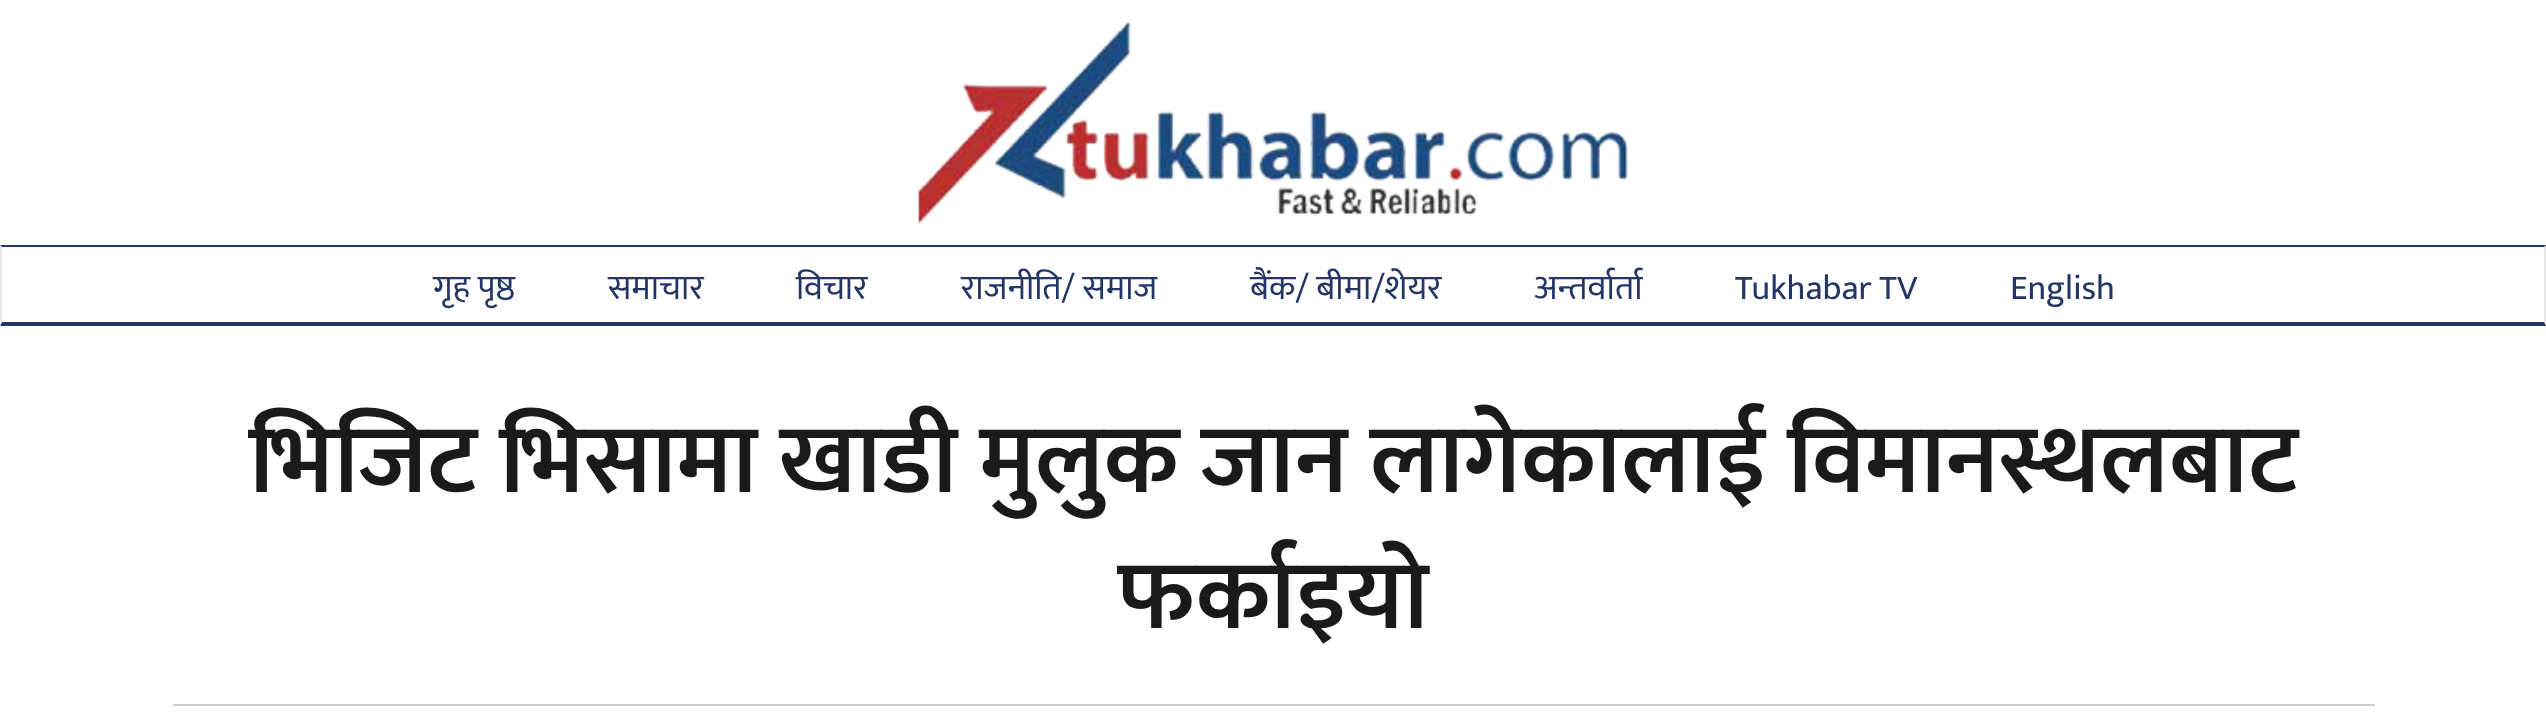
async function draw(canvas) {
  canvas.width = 2546;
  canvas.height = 715;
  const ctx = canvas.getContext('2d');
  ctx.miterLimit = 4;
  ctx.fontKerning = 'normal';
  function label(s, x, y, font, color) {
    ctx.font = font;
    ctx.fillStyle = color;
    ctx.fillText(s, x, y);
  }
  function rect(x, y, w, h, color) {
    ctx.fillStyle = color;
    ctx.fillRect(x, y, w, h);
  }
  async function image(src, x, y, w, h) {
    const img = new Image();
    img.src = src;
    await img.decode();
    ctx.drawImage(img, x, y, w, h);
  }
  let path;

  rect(0, 0, 2546, 715, '#fff');
  await image('assets/img1.png', 917, 21, 711, 204);
  rect(0, 245, 2546, 2, '#243666');
  ctx.fillStyle = '#e7e7e7';
  path = new Path2D('M2546 245V326L2544 322V247Z');
  ctx.fill(path);
  ctx.fillStyle = '#243666';
  path = new Path2D('M2546 326H0L2 322H2544Z');
  ctx.fill(path);
  ctx.fillStyle = '#e7e7e7';
  path = new Path2D('M0 326V245L2 247V322Z');
  ctx.fill(path);
  label('गृह पृष्ठ', 433, 299, '35px Ek Mukta', '#243666');
  label('समाचार', 608, 299, '35px Ek Mukta', '#243666');
  label('विचार', 796, 299, '35px Ek Mukta', '#243666');
  label('राजनीति/ समाज', 961, 299, '35px Ek Mukta', '#243666');
  label('बैंक/ बीमा/शेयर', 1250, 299, '35px Ek Mukta', '#243666');
  label('अन्तर्वार्ता', 1534, 299, '35px Ek Mukta', '#243666');
  label('Tukhabar TV', 1735, 299, '35px Ek Mukta', '#243666');
  label('English', 2010, 299, '35px Ek Mukta', '#243666');
  label('भिजिट भिसामा खाडी मुलुक जान लागेकालाई विमानस्थलबाट', 249, 492, '600 98px Mukta', '#1a1a1a');
  label('फर्काइयो', 1118, 628, '600 98px Mukta', '#1a1a1a');
  rect(173, 704, 2202, 2, '#ccc');
}

draw(document.querySelector('canvas'));
